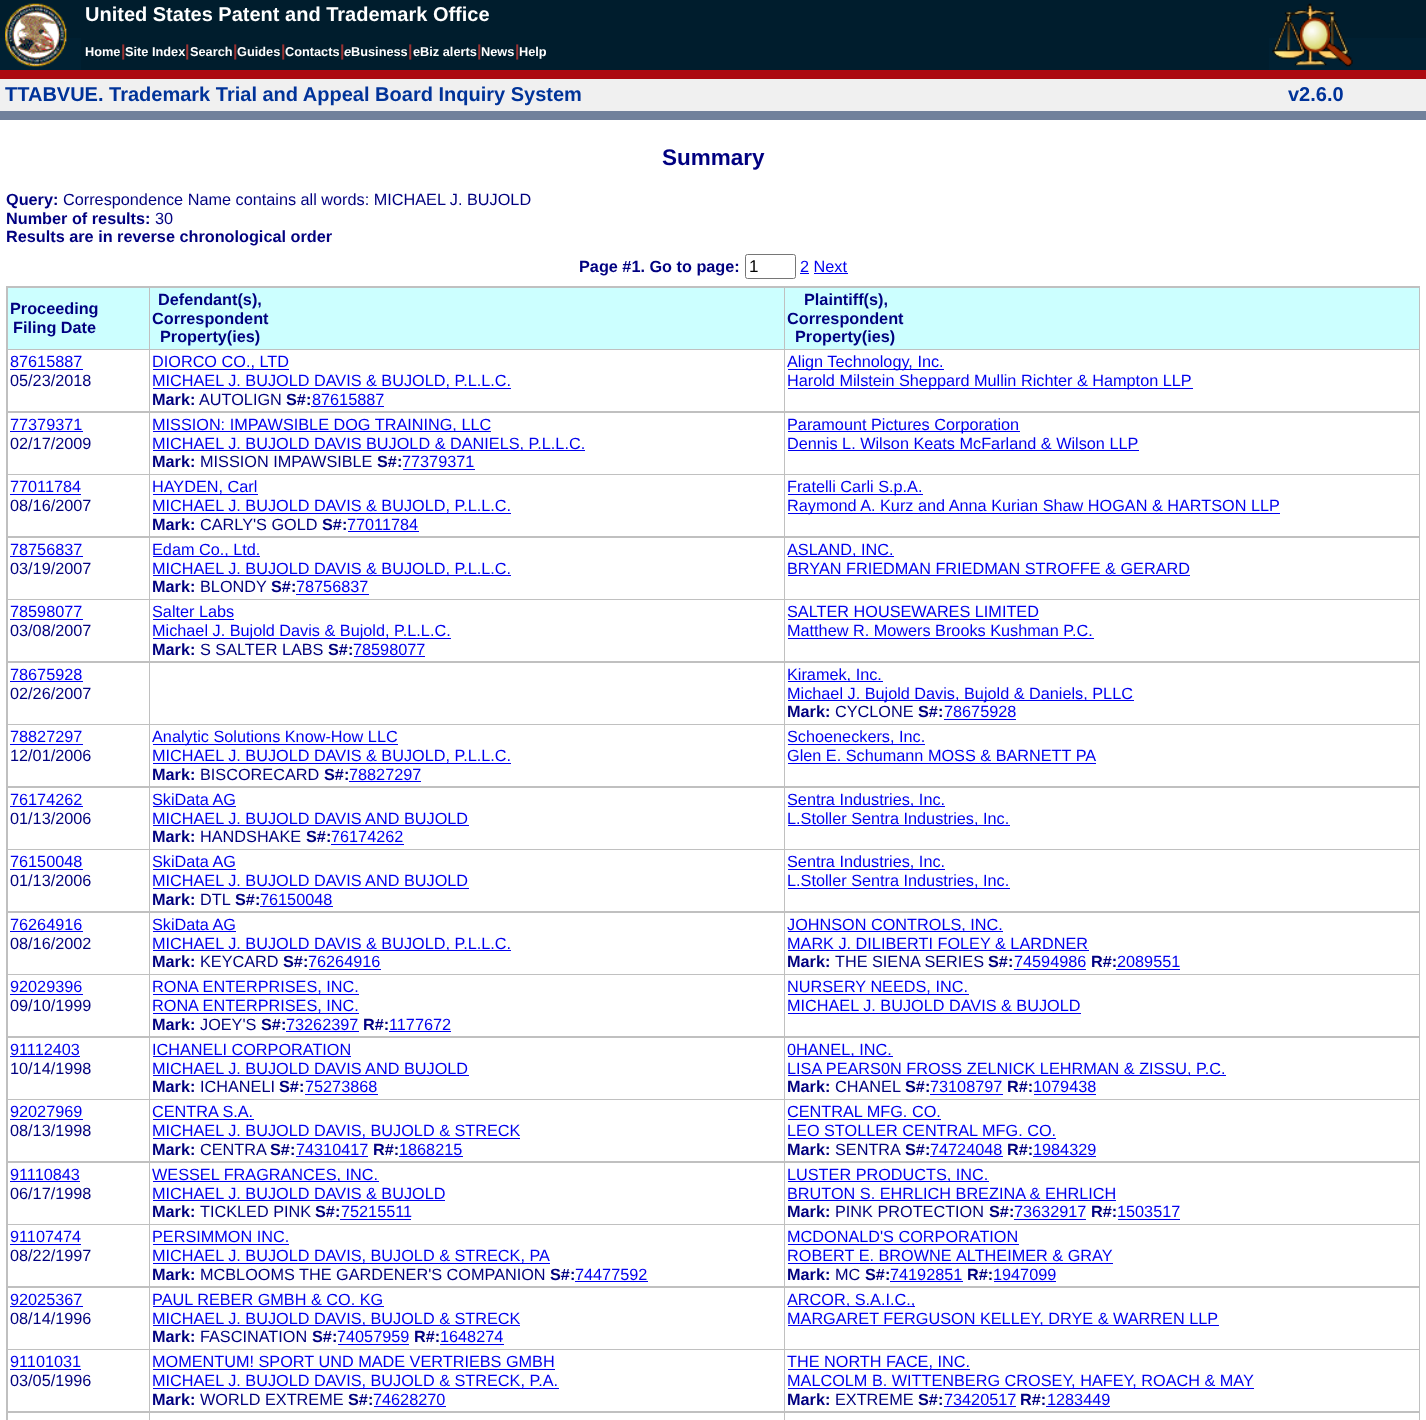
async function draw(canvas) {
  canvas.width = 1426;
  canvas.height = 1420;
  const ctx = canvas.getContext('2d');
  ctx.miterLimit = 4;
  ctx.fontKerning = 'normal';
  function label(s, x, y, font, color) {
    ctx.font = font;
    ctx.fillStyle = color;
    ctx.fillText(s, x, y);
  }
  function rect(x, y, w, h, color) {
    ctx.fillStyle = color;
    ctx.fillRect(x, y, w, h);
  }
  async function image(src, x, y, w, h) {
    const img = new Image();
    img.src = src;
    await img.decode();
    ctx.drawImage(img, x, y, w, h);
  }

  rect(0, 0, 1426, 1420, '#fff');
  rect(0, 0, 1426, 38, '#001d2d');
  rect(0, 38, 1426, 32, '#002032');
  await image('assets/img1.png', 5, 3, 62, 64);
  label('United States Patent and Trademark Office', 85, 21, 'bold 20px Liberation Sans', '#fff');
  await image('assets/img2.png', 1272, 3, 81, 64);
  rect(81, 38, 1188, 32, '#001d2d');
  label('Home', 85, 56, 'bold 12.75px Liberation Sans', '#fff');
  label('|', 121, 56, 'bold 16px Liberation Sans', '#933');
  label('Site Index', 125, 56, 'bold 12.75px Liberation Sans', '#fff');
  label('|', 185, 56, 'bold 16px Liberation Sans', '#933');
  label('Search', 190, 56, 'bold 12.75px Liberation Sans', '#fff');
  label('|', 233, 56, 'bold 16px Liberation Sans', '#933');
  label('Guides', 237, 56, 'bold 12.75px Liberation Sans', '#fff');
  label('|', 281, 56, 'bold 16px Liberation Sans', '#933');
  label('Contacts', 285, 56, 'bold 12.75px Liberation Sans', '#fff');
  label('|', 340, 56, 'bold 16px Liberation Sans', '#933');
  label('e', 344, 56, 'italic bold 12.75px Liberation Sans', '#fff');
  label('Business', 351, 56, 'bold 12.75px Liberation Sans', '#fff');
  label('|', 408, 56, 'bold 16px Liberation Sans', '#933');
  label('eBiz alerts', 413, 56, 'bold 12.75px Liberation Sans', '#fff');
  label('|', 477, 56, 'bold 16px Liberation Sans', '#933');
  label('News', 481, 56, 'bold 12.75px Liberation Sans', '#fff');
  label('|', 515, 56, 'bold 16px Liberation Sans', '#933');
  label('Help', 519, 56, 'bold 12.75px Liberation Sans', '#fff');
  rect(0, 70, 1426, 9, '#ac0911');
  rect(0, 79, 1426, 32, '#f0f0f0');
  label('TTABVUE. Trademark Trial and Appeal Board Inquiry System', 5, 101, 'bold 20px Liberation Sans', '#039');
  label('v2.6.0', 1288, 101, 'bold 20px Liberation Sans', '#039');
  rect(0, 111, 1426, 9, '#71819b');
  label('Summary', 662, 165, 'bold 22.5px Liberation Sans', '#000080');
  label('Query:', 6, 205, 'bold 16.25px Liberation Sans', '#000080');
  label('Correspondence Name contains all words: MICHAEL J. BUJOLD', 63, 205, '16.25px Liberation Sans', '#000080');
  label('Number of results:', 6, 224, 'bold 16.25px Liberation Sans', '#000080');
  label('30', 155, 224, '16.25px Liberation Sans', '#000080');
  label('Results are in reverse chronological order', 6, 242, 'bold 16.25px Liberation Sans', '#000080');
  label('Page #1. Go to page:', 579, 272, 'bold 16.25px Liberation Sans', '#000080');
  ctx.beginPath();
  ctx.roundRect(745.5, 254.5, 50, 24, 2);
  ctx.strokeStyle = '#767676';
  ctx.stroke();
  label('1', 749, 272, '17px Liberation Sans', '#000');
  label('2 Next', 800, 272, '16.25px Liberation Sans', '#00e');
  rect(800, 273, 9, 1, '#00e');
  rect(814, 273, 34, 1, '#00e');
  rect(6, 286, 1414, 1134, '#c0c0c0');
  rect(8, 288, 141, 61, '#cff');
  label('Proceeding', 10, 314, 'bold 16.25px Liberation Sans', '#000080');
  label('Filing Date', 13, 333, 'bold 16.25px Liberation Sans', '#000080');
  rect(150, 288, 634, 61, '#cff');
  label('Defendant(s),', 158, 305, 'bold 16.25px Liberation Sans', '#000080');
  label('Correspondent', 152, 324, 'bold 16.25px Liberation Sans', '#000080');
  label('Property(ies)', 160, 342, 'bold 16.25px Liberation Sans', '#000080');
  rect(785, 288, 634, 61, '#cff');
  label('Plaintiff(s),', 804, 305, 'bold 16.25px Liberation Sans', '#000080');
  label('Correspondent', 787, 324, 'bold 16.25px Liberation Sans', '#000080');
  label('Property(ies)', 795, 342, 'bold 16.25px Liberation Sans', '#000080');
  rect(8, 350, 141, 61, '#fff');
  label('87615887', 10, 367, '16.25px Liberation Sans', '#00e');
  rect(10, 369, 73, 1, '#00e');
  label('05/23/2018', 10, 386, '16.25px Liberation Sans', '#000080');
  rect(150, 350, 634, 61, '#fff');
  rect(153, 369, 136, 1, '#00e');
  label('DIORCO CO., LTD', 152, 367, '16.25px Liberation Sans', '#00e');
  rect(153, 388, 358, 1, '#00e');
  label('MICHAEL J. BUJOLD DAVIS & BUJOLD, P.L.L.C.', 152, 386, '16.25px Liberation Sans', '#00e');
  label('Mark:', 152, 405, 'bold 16.25px Liberation Sans', '#000080');
  label('AUTOLIGN', 199, 405, '16.25px Liberation Sans', '#000080');
  label('S#:', 286, 405, 'bold 16.25px Liberation Sans', '#000080');
  rect(311, 406, 73, 1, '#00e');
  label('87615887', 312, 405, '16.25px Liberation Sans', '#00e');
  rect(785, 350, 634, 61, '#fff');
  rect(788, 369, 156, 1, '#00e');
  label('Align Technology, Inc.', 787, 367, '16.25px Liberation Sans', '#00e');
  rect(788, 388, 405, 1, '#00e');
  label('Harold Milstein Sheppard Mullin Richter & Hampton LLP', 787, 386, '16.25px Liberation Sans', '#00e');
  rect(8, 413, 141, 61, '#fff');
  label('77379371', 10, 430, '16.25px Liberation Sans', '#00e');
  rect(10, 431, 73, 1, '#00e');
  label('02/17/2009', 10, 449, '16.25px Liberation Sans', '#000080');
  rect(150, 413, 634, 61, '#fff');
  rect(153, 431, 338, 1, '#00e');
  label('MISSION: IMPAWSIBLE DOG TRAINING, LLC', 152, 430, '16.25px Liberation Sans', '#00e');
  rect(153, 450, 432, 1, '#00e');
  label('MICHAEL J. BUJOLD DAVIS BUJOLD & DANIELS, P.L.L.C.', 152, 449, '16.25px Liberation Sans', '#00e');
  label('Mark:', 152, 467, 'bold 16.25px Liberation Sans', '#000080');
  label('MISSION IMPAWSIBLE', 200, 467, '16.25px Liberation Sans', '#000080');
  label('S#:', 377, 467, 'bold 16.25px Liberation Sans', '#000080');
  label('77379371', 402, 467, '16.25px Liberation Sans', '#00e');
  rect(403, 469, 72, 1, '#00e');
  rect(785, 413, 634, 61, '#fff');
  rect(788, 431, 232, 1, '#00e');
  label('Paramount Pictures Corporation', 787, 430, '16.25px Liberation Sans', '#00e');
  label('Dennis L. Wilson Keats McFarland & Wilson LLP', 787, 449, '16.25px Liberation Sans', '#00e');
  rect(788, 450, 351, 1, '#00e');
  rect(8, 475, 141, 61, '#fff');
  label('77011784', 10, 492, '16.25px Liberation Sans', '#00e');
  rect(10, 494, 71, 1, '#00e');
  label('08/16/2007', 10, 511, '16.25px Liberation Sans', '#000080');
  rect(150, 475, 634, 61, '#fff');
  rect(153, 494, 105, 1, '#00e');
  label('HAYDEN, Carl', 152, 492, '16.25px Liberation Sans', '#00e');
  rect(153, 513, 358, 1, '#00e');
  label('MICHAEL J. BUJOLD DAVIS & BUJOLD, P.L.L.C.', 152, 511, '16.25px Liberation Sans', '#00e');
  label('Mark:', 152, 530, 'bold 16.25px Liberation Sans', '#000080');
  label('CARLY\'S GOLD', 200, 530, '16.25px Liberation Sans', '#000080');
  label('S#:', 322, 530, 'bold 16.25px Liberation Sans', '#000080');
  label('77011784', 347, 530, '16.25px Liberation Sans', '#00e');
  rect(348, 531, 71, 1, '#00e');
  rect(785, 475, 634, 61, '#fff');
  rect(788, 494, 135, 1, '#00e');
  label('Fratelli Carli S.p.A.', 787, 492, '16.25px Liberation Sans', '#00e');
  rect(788, 513, 492, 1, '#00e');
  label('Raymond A. Kurz and Anna Kurian Shaw HOGAN & HARTSON LLP', 787, 511, '16.25px Liberation Sans', '#00e');
  rect(8, 538, 141, 61, '#fff');
  label('78756837', 10, 555, '16.25px Liberation Sans', '#00e');
  rect(10, 556, 73, 1, '#00e');
  label('03/19/2007', 10, 574, '16.25px Liberation Sans', '#000080');
  rect(150, 538, 634, 61, '#fff');
  rect(153, 556, 107, 1, '#00e');
  label('Edam Co., Ltd.', 152, 555, '16.25px Liberation Sans', '#00e');
  rect(153, 575, 358, 1, '#00e');
  label('MICHAEL J. BUJOLD DAVIS & BUJOLD, P.L.L.C.', 152, 574, '16.25px Liberation Sans', '#00e');
  label('Mark:', 152, 592, 'bold 16.25px Liberation Sans', '#000080');
  label('BLONDY', 200, 592, '16.25px Liberation Sans', '#000080');
  label('S#:', 271, 592, 'bold 16.25px Liberation Sans', '#000080');
  label('78756837', 296, 592, '16.25px Liberation Sans', '#00e');
  rect(296, 594, 73, 1, '#00e');
  rect(785, 538, 634, 61, '#fff');
  rect(788, 556, 106, 1, '#00e');
  label('ASLAND, INC.', 787, 555, '16.25px Liberation Sans', '#00e');
  label('BRYAN FRIEDMAN FRIEDMAN STROFFE & GERARD', 787, 574, '16.25px Liberation Sans', '#00e');
  rect(788, 575, 402, 1, '#00e');
  rect(8, 600, 141, 61, '#fff');
  label('78598077', 10, 617, '16.25px Liberation Sans', '#00e');
  rect(10, 619, 73, 1, '#00e');
  label('03/08/2007', 10, 636, '16.25px Liberation Sans', '#000080');
  rect(150, 600, 634, 61, '#fff');
  label('Salter Labs', 152, 617, '16.25px Liberation Sans', '#00e');
  rect(153, 619, 81, 1, '#00e');
  rect(153, 638, 298, 1, '#00e');
  label('Michael J. Bujold Davis & Bujold, P.L.L.C.', 152, 636, '16.25px Liberation Sans', '#00e');
  label('Mark:', 152, 655, 'bold 16.25px Liberation Sans', '#000080');
  label('S SALTER LABS', 200, 655, '16.25px Liberation Sans', '#000080');
  label('S#:', 328, 655, 'bold 16.25px Liberation Sans', '#000080');
  label('78598077', 353, 655, '16.25px Liberation Sans', '#00e');
  rect(354, 656, 71, 1, '#00e');
  rect(785, 600, 634, 61, '#fff');
  label('SALTER HOUSEWARES LIMITED', 787, 617, '16.25px Liberation Sans', '#00e');
  rect(788, 619, 251, 1, '#00e');
  label('Matthew R. Mowers Brooks Kushman P.C.', 787, 636, '16.25px Liberation Sans', '#00e');
  rect(788, 638, 306, 1, '#00e');
  rect(8, 663, 141, 61, '#fff');
  label('78675928', 10, 680, '16.25px Liberation Sans', '#00e');
  rect(10, 681, 73, 1, '#00e');
  label('02/26/2007', 10, 699, '16.25px Liberation Sans', '#000080');
  rect(150, 663, 634, 61, '#fff');
  rect(785, 663, 634, 61, '#fff');
  rect(788, 681, 95, 1, '#00e');
  label('Kiramek, Inc.', 787, 680, '16.25px Liberation Sans', '#00e');
  rect(788, 700, 346, 1, '#00e');
  label('Michael J. Bujold Davis, Bujold & Daniels, PLLC', 787, 699, '16.25px Liberation Sans', '#00e');
  label('Mark:', 787, 717, 'bold 16.25px Liberation Sans', '#000080');
  label('CYCLONE', 835, 717, '16.25px Liberation Sans', '#000080');
  label('S#:', 918, 717, 'bold 16.25px Liberation Sans', '#000080');
  label('78675928', 944, 717, '16.25px Liberation Sans', '#00e');
  rect(944, 719, 72, 1, '#00e');
  rect(8, 725, 141, 61, '#fff');
  label('78827297', 10, 742, '16.25px Liberation Sans', '#00e');
  rect(10, 744, 73, 1, '#00e');
  label('12/01/2006', 10, 761, '16.25px Liberation Sans', '#000080');
  rect(150, 725, 634, 61, '#fff');
  rect(153, 744, 245, 1, '#00e');
  label('Analytic Solutions Know-How LLC', 152, 742, '16.25px Liberation Sans', '#00e');
  rect(153, 763, 358, 1, '#00e');
  label('MICHAEL J. BUJOLD DAVIS & BUJOLD, P.L.L.C.', 152, 761, '16.25px Liberation Sans', '#00e');
  label('Mark:', 152, 780, 'bold 16.25px Liberation Sans', '#000080');
  label('BISCORECARD', 200, 780, '16.25px Liberation Sans', '#000080');
  label('S#:', 324, 780, 'bold 16.25px Liberation Sans', '#000080');
  label('78827297', 349, 780, '16.25px Liberation Sans', '#00e');
  rect(349, 781, 72, 1, '#00e');
  rect(785, 725, 634, 61, '#fff');
  rect(788, 744, 137, 1, '#00e');
  label('Schoeneckers, Inc.', 787, 742, '16.25px Liberation Sans', '#00e');
  label('Glen E. Schumann MOSS & BARNETT PA', 787, 761, '16.25px Liberation Sans', '#00e');
  rect(788, 763, 308, 1, '#00e');
  rect(8, 788, 141, 61, '#fff');
  label('76174262', 10, 805, '16.25px Liberation Sans', '#00e');
  rect(10, 806, 73, 1, '#00e');
  label('01/13/2006', 10, 824, '16.25px Liberation Sans', '#000080');
  rect(150, 788, 634, 61, '#fff');
  label('SkiData AG', 152, 805, '16.25px Liberation Sans', '#00e');
  rect(153, 806, 83, 1, '#00e');
  label('MICHAEL J. BUJOLD DAVIS AND BUJOLD', 152, 824, '16.25px Liberation Sans', '#00e');
  rect(153, 825, 316, 1, '#00e');
  label('Mark:', 152, 842, 'bold 16.25px Liberation Sans', '#000080');
  label('HANDSHAKE', 200, 842, '16.25px Liberation Sans', '#000080');
  label('S#:', 306, 842, 'bold 16.25px Liberation Sans', '#000080');
  label('76174262', 331, 842, '16.25px Liberation Sans', '#00e');
  rect(331, 844, 73, 1, '#00e');
  rect(785, 788, 634, 61, '#fff');
  rect(788, 806, 157, 1, '#00e');
  label('Sentra Industries, Inc.', 787, 805, '16.25px Liberation Sans', '#00e');
  rect(788, 825, 222, 1, '#00e');
  label('L.Stoller Sentra Industries, Inc.', 787, 824, '16.25px Liberation Sans', '#00e');
  rect(8, 850, 141, 61, '#fff');
  label('76150048', 10, 867, '16.25px Liberation Sans', '#00e');
  rect(10, 869, 73, 1, '#00e');
  label('01/13/2006', 10, 886, '16.25px Liberation Sans', '#000080');
  rect(150, 850, 634, 61, '#fff');
  label('SkiData AG', 152, 867, '16.25px Liberation Sans', '#00e');
  rect(153, 869, 83, 1, '#00e');
  label('MICHAEL J. BUJOLD DAVIS AND BUJOLD', 152, 886, '16.25px Liberation Sans', '#00e');
  rect(153, 888, 316, 1, '#00e');
  label('Mark:', 152, 905, 'bold 16.25px Liberation Sans', '#000080');
  label('DTL', 200, 905, '16.25px Liberation Sans', '#000080');
  label('S#:', 235, 905, 'bold 16.25px Liberation Sans', '#000080');
  label('76150048', 260, 905, '16.25px Liberation Sans', '#00e');
  rect(260, 906, 73, 1, '#00e');
  rect(785, 850, 634, 61, '#fff');
  rect(788, 869, 157, 1, '#00e');
  label('Sentra Industries, Inc.', 787, 867, '16.25px Liberation Sans', '#00e');
  rect(788, 888, 222, 1, '#00e');
  label('L.Stoller Sentra Industries, Inc.', 787, 886, '16.25px Liberation Sans', '#00e');
  rect(8, 913, 141, 61, '#fff');
  label('76264916', 10, 930, '16.25px Liberation Sans', '#00e');
  rect(10, 931, 73, 1, '#00e');
  label('08/16/2002', 10, 949, '16.25px Liberation Sans', '#000080');
  rect(150, 913, 634, 61, '#fff');
  label('SkiData AG', 152, 930, '16.25px Liberation Sans', '#00e');
  rect(153, 931, 83, 1, '#00e');
  rect(153, 950, 358, 1, '#00e');
  label('MICHAEL J. BUJOLD DAVIS & BUJOLD, P.L.L.C.', 152, 949, '16.25px Liberation Sans', '#00e');
  label('Mark:', 152, 967, 'bold 16.25px Liberation Sans', '#000080');
  label('KEYCARD', 200, 967, '16.25px Liberation Sans', '#000080');
  label('S#:', 283, 967, 'bold 16.25px Liberation Sans', '#000080');
  label('76264916', 308, 967, '16.25px Liberation Sans', '#00e');
  rect(309, 969, 72, 1, '#00e');
  rect(785, 913, 634, 61, '#fff');
  rect(788, 931, 215, 1, '#00e');
  label('JOHNSON CONTROLS, INC.', 787, 930, '16.25px Liberation Sans', '#00e');
  label('MARK J. DILIBERTI FOLEY & LARDNER', 787, 949, '16.25px Liberation Sans', '#00e');
  rect(788, 950, 301, 1, '#00e');
  label('Mark:', 787, 967, 'bold 16.25px Liberation Sans', '#000080');
  label('THE SIENA SERIES', 835, 967, '16.25px Liberation Sans', '#000080');
  label('S#:', 988, 967, 'bold 16.25px Liberation Sans', '#000080');
  label('74594986', 1014, 967, '16.25px Liberation Sans', '#00e');
  rect(1014, 969, 72, 1, '#00e');
  label('R#:', 1091, 967, 'bold 16.25px Liberation Sans', '#000080');
  label('2089551', 1117, 967, '16.25px Liberation Sans', '#00e');
  rect(1116, 969, 64, 1, '#00e');
  rect(8, 975, 141, 61, '#fff');
  label('92029396', 10, 992, '16.25px Liberation Sans', '#00e');
  rect(10, 994, 73, 1, '#00e');
  label('09/10/1999', 10, 1011, '16.25px Liberation Sans', '#000080');
  rect(150, 975, 634, 61, '#fff');
  rect(153, 994, 206, 1, '#00e');
  label('RONA ENTERPRISES, INC.', 152, 992, '16.25px Liberation Sans', '#00e');
  rect(153, 1013, 206, 1, '#00e');
  label('RONA ENTERPRISES, INC.', 152, 1011, '16.25px Liberation Sans', '#00e');
  label('Mark:', 152, 1030, 'bold 16.25px Liberation Sans', '#000080');
  label('JOEY\'S', 200, 1030, '16.25px Liberation Sans', '#000080');
  label('S#:', 261, 1030, 'bold 16.25px Liberation Sans', '#000080');
  label('73262397', 286, 1030, '16.25px Liberation Sans', '#00e');
  rect(286, 1031, 73, 1, '#00e');
  label('R#:', 363, 1030, 'bold 16.25px Liberation Sans', '#000080');
  label('1177672', 389, 1030, '16.25px Liberation Sans', '#00e');
  rect(389, 1031, 62, 1, '#00e');
  rect(785, 975, 634, 61, '#fff');
  rect(788, 994, 181, 1, '#00e');
  label('NURSERY NEEDS, INC.', 787, 992, '16.25px Liberation Sans', '#00e');
  label('MICHAEL J. BUJOLD DAVIS & BUJOLD', 787, 1011, '16.25px Liberation Sans', '#00e');
  rect(788, 1013, 293, 1, '#00e');
  rect(8, 1038, 141, 61, '#fff');
  label('91112403', 10, 1055, '16.25px Liberation Sans', '#00e');
  rect(10, 1056, 70, 1, '#00e');
  label('10/14/1998', 10, 1074, '16.25px Liberation Sans', '#000080');
  rect(150, 1038, 634, 61, '#fff');
  label('ICHANELI CORPORATION', 152, 1055, '16.25px Liberation Sans', '#00e');
  rect(153, 1056, 198, 1, '#00e');
  label('MICHAEL J. BUJOLD DAVIS AND BUJOLD', 152, 1074, '16.25px Liberation Sans', '#00e');
  rect(153, 1075, 316, 1, '#00e');
  label('Mark:', 152, 1092, 'bold 16.25px Liberation Sans', '#000080');
  label('ICHANELI', 200, 1092, '16.25px Liberation Sans', '#000080');
  label('S#:', 279, 1092, 'bold 16.25px Liberation Sans', '#000080');
  label('75273868', 305, 1092, '16.25px Liberation Sans', '#00e');
  rect(305, 1094, 73, 1, '#00e');
  rect(785, 1038, 634, 61, '#fff');
  rect(788, 1056, 105, 1, '#00e');
  label('0HANEL, INC.', 787, 1055, '16.25px Liberation Sans', '#00e');
  rect(788, 1075, 438, 1, '#00e');
  label('LISA PEARS0N FROSS ZELNICK LEHRMAN & ZISSU, P.C.', 787, 1074, '16.25px Liberation Sans', '#00e');
  label('Mark:', 787, 1092, 'bold 16.25px Liberation Sans', '#000080');
  label('CHANEL', 835, 1092, '16.25px Liberation Sans', '#000080');
  label('S#:', 905, 1092, 'bold 16.25px Liberation Sans', '#000080');
  label('73108797', 930, 1092, '16.25px Liberation Sans', '#00e');
  rect(930, 1094, 73, 1, '#00e');
  label('R#:', 1007, 1092, 'bold 16.25px Liberation Sans', '#000080');
  label('1079438', 1033, 1092, '16.25px Liberation Sans', '#00e');
  rect(1034, 1094, 62, 1, '#00e');
  rect(8, 1100, 141, 61, '#fff');
  label('92027969', 10, 1117, '16.25px Liberation Sans', '#00e');
  rect(10, 1119, 73, 1, '#00e');
  label('08/13/1998', 10, 1136, '16.25px Liberation Sans', '#000080');
  rect(150, 1100, 634, 61, '#fff');
  label('CENTRA S.A.', 152, 1117, '16.25px Liberation Sans', '#00e');
  rect(153, 1119, 101, 1, '#00e');
  rect(153, 1138, 367, 1, '#00e');
  label('MICHAEL J. BUJOLD DAVIS, BUJOLD & STRECK', 152, 1136, '16.25px Liberation Sans', '#00e');
  label('Mark:', 152, 1155, 'bold 16.25px Liberation Sans', '#000080');
  label('CENTRA', 200, 1155, '16.25px Liberation Sans', '#000080');
  label('S#:', 270, 1155, 'bold 16.25px Liberation Sans', '#000080');
  label('74310417', 296, 1155, '16.25px Liberation Sans', '#00e');
  rect(296, 1156, 72, 1, '#00e');
  label('R#:', 373, 1155, 'bold 16.25px Liberation Sans', '#000080');
  label('1868215', 399, 1155, '16.25px Liberation Sans', '#00e');
  rect(399, 1156, 64, 1, '#00e');
  rect(785, 1100, 634, 61, '#fff');
  label('CENTRAL MFG. CO.', 787, 1117, '16.25px Liberation Sans', '#00e');
  rect(788, 1119, 153, 1, '#00e');
  label('LEO STOLLER CENTRAL MFG. CO.', 787, 1136, '16.25px Liberation Sans', '#00e');
  rect(788, 1138, 268, 1, '#00e');
  label('Mark:', 787, 1155, 'bold 16.25px Liberation Sans', '#000080');
  label('SENTRA', 835, 1155, '16.25px Liberation Sans', '#000080');
  label('S#:', 905, 1155, 'bold 16.25px Liberation Sans', '#000080');
  label('74724048', 930, 1155, '16.25px Liberation Sans', '#00e');
  rect(930, 1156, 73, 1, '#00e');
  label('R#:', 1007, 1155, 'bold 16.25px Liberation Sans', '#000080');
  label('1984329', 1033, 1155, '16.25px Liberation Sans', '#00e');
  rect(1033, 1156, 63, 1, '#00e');
  rect(8, 1163, 141, 61, '#fff');
  label('91110843', 10, 1180, '16.25px Liberation Sans', '#00e');
  rect(10, 1181, 70, 1, '#00e');
  label('06/17/1998', 10, 1199, '16.25px Liberation Sans', '#000080');
  rect(150, 1163, 634, 61, '#fff');
  rect(153, 1181, 226, 1, '#00e');
  label('WESSEL FRAGRANCES, INC.', 152, 1180, '16.25px Liberation Sans', '#00e');
  label('MICHAEL J. BUJOLD DAVIS & BUJOLD', 152, 1199, '16.25px Liberation Sans', '#00e');
  rect(153, 1200, 292, 1, '#00e');
  label('Mark:', 152, 1217, 'bold 16.25px Liberation Sans', '#000080');
  label('TICKLED PINK', 200, 1217, '16.25px Liberation Sans', '#000080');
  label('S#:', 315, 1217, 'bold 16.25px Liberation Sans', '#000080');
  rect(340, 1219, 71, 1, '#00e');
  label('75215511', 341, 1217, '16.25px Liberation Sans', '#00e');
  rect(785, 1163, 634, 61, '#fff');
  rect(788, 1181, 201, 1, '#00e');
  label('LUSTER PRODUCTS, INC.', 787, 1180, '16.25px Liberation Sans', '#00e');
  label('BRUTON S. EHRLICH BREZINA & EHRLICH', 787, 1199, '16.25px Liberation Sans', '#00e');
  rect(788, 1200, 328, 1, '#00e');
  label('Mark:', 787, 1217, 'bold 16.25px Liberation Sans', '#000080');
  label('PINK PROTECTION', 835, 1217, '16.25px Liberation Sans', '#000080');
  label('S#:', 989, 1217, 'bold 16.25px Liberation Sans', '#000080');
  label('73632917', 1014, 1217, '16.25px Liberation Sans', '#00e');
  rect(1014, 1219, 72, 1, '#00e');
  label('R#:', 1091, 1217, 'bold 16.25px Liberation Sans', '#000080');
  label('1503517', 1117, 1217, '16.25px Liberation Sans', '#00e');
  rect(1118, 1219, 62, 1, '#00e');
  rect(8, 1225, 141, 61, '#fff');
  label('91107474', 10, 1242, '16.25px Liberation Sans', '#00e');
  rect(10, 1244, 71, 1, '#00e');
  label('08/22/1997', 10, 1261, '16.25px Liberation Sans', '#000080');
  rect(150, 1225, 634, 61, '#fff');
  label('PERSIMMON INC.', 152, 1242, '16.25px Liberation Sans', '#00e');
  rect(153, 1244, 136, 1, '#00e');
  rect(153, 1263, 397, 1, '#00e');
  label('MICHAEL J. BUJOLD DAVIS, BUJOLD & STRECK, PA', 152, 1261, '16.25px Liberation Sans', '#00e');
  label('Mark:', 152, 1280, 'bold 16.25px Liberation Sans', '#000080');
  label('MCBLOOMS THE GARDENER\'S COMPANION', 200, 1280, '16.25px Liberation Sans', '#000080');
  label('S#:', 550, 1280, 'bold 16.25px Liberation Sans', '#000080');
  label('74477592', 575, 1280, '16.25px Liberation Sans', '#00e');
  rect(575, 1281, 73, 1, '#00e');
  rect(785, 1225, 634, 61, '#fff');
  label('MCDONALD\'S CORPORATION', 787, 1242, '16.25px Liberation Sans', '#00e');
  rect(788, 1244, 231, 1, '#00e');
  label('ROBERT E. BROWNE', 787, 1261, '16.25px Liberation Sans', '#00e');
  rect(788, 1263, 325, 1, '#00e');
  label('ALTHEIMER & GRAY', 956, 1261, '16.25px Liberation Sans', '#00e');
  label('Mark:', 787, 1280, 'bold 16.25px Liberation Sans', '#000080');
  label('MC', 835, 1280, '16.25px Liberation Sans', '#000080');
  label('S#:', 865, 1280, 'bold 16.25px Liberation Sans', '#000080');
  label('74192851', 890, 1280, '16.25px Liberation Sans', '#00e');
  rect(890, 1281, 73, 1, '#00e');
  label('R#:', 967, 1280, 'bold 16.25px Liberation Sans', '#000080');
  label('1947099', 993, 1280, '16.25px Liberation Sans', '#00e');
  rect(994, 1281, 62, 1, '#00e');
  rect(8, 1288, 141, 61, '#fff');
  label('92025367', 10, 1305, '16.25px Liberation Sans', '#00e');
  rect(10, 1306, 73, 1, '#00e');
  label('08/14/1996', 10, 1324, '16.25px Liberation Sans', '#000080');
  rect(150, 1288, 634, 61, '#fff');
  label('PAUL REBER GMBH & CO. KG', 152, 1305, '16.25px Liberation Sans', '#00e');
  rect(153, 1306, 231, 1, '#00e');
  rect(153, 1325, 367, 1, '#00e');
  label('MICHAEL J. BUJOLD DAVIS, BUJOLD & STRECK', 152, 1324, '16.25px Liberation Sans', '#00e');
  label('Mark:', 152, 1342, 'bold 16.25px Liberation Sans', '#000080');
  label('FASCINATION', 200, 1342, '16.25px Liberation Sans', '#000080');
  label('S#:', 312, 1342, 'bold 16.25px Liberation Sans', '#000080');
  label('74057959', 337, 1342, '16.25px Liberation Sans', '#00e');
  rect(338, 1344, 71, 1, '#00e');
  label('R#:', 414, 1342, 'bold 16.25px Liberation Sans', '#000080');
  label('1648274', 440, 1342, '16.25px Liberation Sans', '#00e');
  rect(440, 1344, 64, 1, '#00e');
  rect(785, 1288, 634, 61, '#fff');
  rect(788, 1306, 127, 1, '#00e');
  label('ARCOR, S.A.I.C.,', 787, 1305, '16.25px Liberation Sans', '#00e');
  rect(788, 1325, 431, 1, '#00e');
  label('MARGARET FERGUSON KELLEY, DRYE & WARREN LLP', 787, 1324, '16.25px Liberation Sans', '#00e');
  rect(8, 1350, 141, 61, '#fff');
  label('91101031', 10, 1367, '16.25px Liberation Sans', '#00e');
  rect(10, 1369, 71, 1, '#00e');
  label('03/05/1996', 10, 1386, '16.25px Liberation Sans', '#000080');
  rect(150, 1350, 634, 61, '#fff');
  label('MOMENTUM! SPORT UND MADE VERTRIEBS GMBH', 152, 1367, '16.25px Liberation Sans', '#00e');
  rect(153, 1369, 402, 1, '#00e');
  rect(153, 1388, 406, 1, '#00e');
  label('MICHAEL J. BUJOLD DAVIS, BUJOLD & STRECK, P.A.', 152, 1386, '16.25px Liberation Sans', '#00e');
  label('Mark:', 152, 1405, 'bold 16.25px Liberation Sans', '#000080');
  label('WORLD EXTREME', 200, 1405, '16.25px Liberation Sans', '#000080');
  label('S#:', 348, 1405, 'bold 16.25px Liberation Sans', '#000080');
  label('74628270', 373, 1405, '16.25px Liberation Sans', '#00e');
  rect(374, 1406, 72, 1, '#00e');
  rect(785, 1350, 634, 61, '#fff');
  rect(788, 1369, 182, 1, '#00e');
  label('THE NORTH FACE, INC.', 787, 1367, '16.25px Liberation Sans', '#00e');
  rect(788, 1388, 466, 1, '#00e');
  label('MALCOLM B. WITTENBERG CROSEY, HAFEY, ROACH & MAY', 787, 1386, '16.25px Liberation Sans', '#00e');
  label('Mark:', 787, 1405, 'bold 16.25px Liberation Sans', '#000080');
  label('EXTREME', 835, 1405, '16.25px Liberation Sans', '#000080');
  label('S#:', 918, 1405, 'bold 16.25px Liberation Sans', '#000080');
  label('73420517', 944, 1405, '16.25px Liberation Sans', '#00e');
  rect(944, 1406, 72, 1, '#00e');
  label('R#:', 1020, 1405, 'bold 16.25px Liberation Sans', '#000080');
  label('1283449', 1047, 1405, '16.25px Liberation Sans', '#00e');
  rect(1046, 1406, 64, 1, '#00e');
  rect(8, 1413, 141, 7, '#fff');
  rect(150, 1413, 634, 7, '#fff');
  rect(785, 1413, 634, 7, '#fff');
}

draw(document.querySelector('canvas'));
